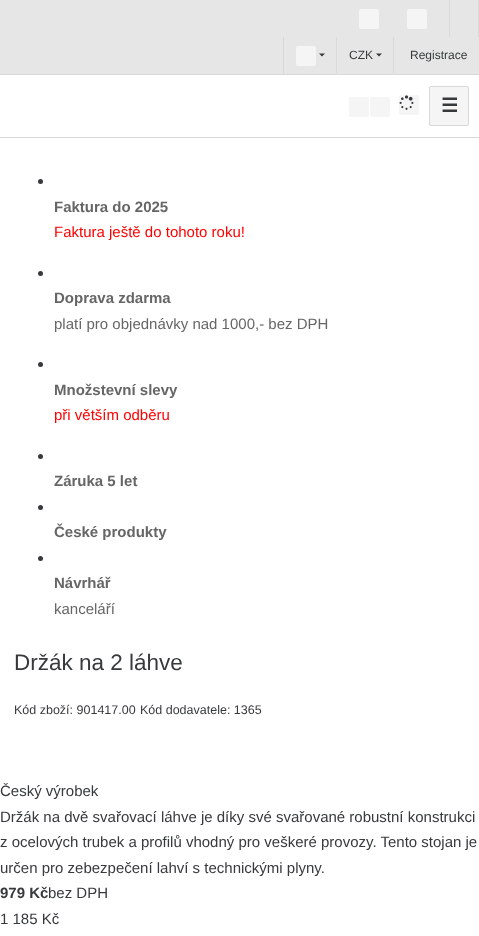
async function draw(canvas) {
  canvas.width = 479;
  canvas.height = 936;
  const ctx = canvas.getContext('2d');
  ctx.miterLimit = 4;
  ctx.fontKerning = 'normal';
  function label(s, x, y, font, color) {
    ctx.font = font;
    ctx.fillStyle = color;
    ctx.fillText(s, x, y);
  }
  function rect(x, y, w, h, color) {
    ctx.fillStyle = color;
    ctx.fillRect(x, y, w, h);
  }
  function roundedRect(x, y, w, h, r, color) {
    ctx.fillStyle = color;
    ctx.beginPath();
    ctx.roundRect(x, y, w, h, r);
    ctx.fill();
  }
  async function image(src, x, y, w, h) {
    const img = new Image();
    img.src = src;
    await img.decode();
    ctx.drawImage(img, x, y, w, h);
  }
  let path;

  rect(0, 0, 479, 936, '#fff');
  rect(0, 0, 479, 74, '#e6e6e6');
  rect(0, 74, 479, 1, '#d9d9d9');
  rect(449, 0, 1, 37, '#d9d9d9');
  roundedRect(359, 9, 20, 20, 2, '#f5f5f5');
  roundedRect(407, 9, 20, 20, 2, '#f5f5f5');
  rect(478, 0, 1, 37, '#d9d9d9');
  rect(283, 37, 1, 37, '#d9d9d9');
  roundedRect(296, 46, 20, 20, 2, '#f5f5f5');
  ctx.fillStyle = '#373a3c';
  path = new Path2D('M319 53.5H325L322 56.5Z');
  ctx.fill(path);
  rect(336, 37, 1, 36, '#d9d9d9');
  label('CZK', 349, 59, '12px Liberation Sans', '#373a3c');
  path = new Path2D('M376 53.5H382L379 56.5Z');
  ctx.fill(path);
  rect(393, 37, 1, 36, '#d9d9d9');
  label('Registrace', 410, 59, '12px Liberation Sans', '#373a3c');
  rect(0, 137, 479, 1, '#d9d9d9');
  roundedRect(349, 97, 20, 20, 2, '#f5f5f5');
  roundedRect(370, 97, 20, 20, 2, '#f5f5f5');
  roundedRect(399, 95, 20, 20, 2, '#f5f5f5');
  await image('assets/img1.png', 399, 95, 15, 15);
  ctx.beginPath();
  ctx.roundRect(429.5, 86.5, 39, 39, 1.5);
  ctx.fill();
  ctx.strokeStyle = '#d9d9d9';
  ctx.stroke();
  label('☰', 441, 112, 'bold 19px DejaVu Sans', '#373a3c');
  ctx.beginPath();
  ctx.arc(40.5, 181.5, 2.5, 0, 2 * Math.PI);
  ctx.fill();
  label('Faktura do 2025', 54, 212, 'bold 15px Liberation Sans', '#666');
  label('Faktura ještě do tohoto roku!', 54, 237, '15px Liberation Sans', '#f00');
  ctx.fillStyle = '#373a3c';
  ctx.beginPath();
  ctx.arc(40.5, 273.5, 2.5, 0, 2 * Math.PI);
  ctx.fill();
  label('Doprava zdarma', 54, 303, 'bold 15px Liberation Sans', '#666');
  label('platí pro objednávky nad 1000,- bez DPH', 54, 329, '15px Liberation Sans', '#666');
  ctx.fillStyle = '#373a3c';
  ctx.beginPath();
  ctx.arc(40.5, 364.5, 2.5, 0, 2 * Math.PI);
  ctx.fill();
  label('Množstevní slevy', 54, 395, 'bold 15px Liberation Sans', '#666');
  label('při větším odběru', 54, 420, '15px Liberation Sans', '#f00');
  ctx.fillStyle = '#373a3c';
  ctx.beginPath();
  ctx.arc(40.5, 456.5, 2.5, 0, 2 * Math.PI);
  ctx.fill();
  label('Záruka 5 let', 54, 486, 'bold 15px Liberation Sans', '#666');
  ctx.fillStyle = '#373a3c';
  ctx.beginPath();
  ctx.arc(40.5, 507.5, 2.5, 0, 2 * Math.PI);
  ctx.fill();
  label('České produkty', 54, 537, 'bold 15px Liberation Sans', '#666');
  ctx.fillStyle = '#373a3c';
  ctx.beginPath();
  ctx.arc(40.5, 558.5, 2.5, 0, 2 * Math.PI);
  ctx.fill();
  label('Návrhář', 54, 588, 'bold 15px Liberation Sans', '#666');
  label('kanceláří', 54, 614, '15px Liberation Sans', '#666');
  label('Držák na 2 láhve', 14, 670, '22.5px Liberation Sans', '#373a3c');
  label('Kód zboží: 901417.00', 14, 714, '12.5px Liberation Sans', '#373a3c');
  label('Kód dodavatele: 1365', 140, 714, '12.5px Liberation Sans', '#373a3c');
  label('Český výrobek', 0, 796, '15px Liberation Sans', '#373a3c');
  label('Držák na dvě svařovací láhve je díky své svařované robustní konstrukci', 0, 822, '15px Liberation Sans', '#373a3c');
  label('z ocelových trubek a profilů vhodný pro veškeré provozy. Tento stojan je', 0, 847, '15px Liberation Sans', '#373a3c');
  label('určen pro zebezpečení lahví s technickými plyny.', 0, 873, '15px Liberation Sans', '#373a3c');
  label('979 Kč', 0, 898, 'bold 15px Liberation Sans', '#373a3c');
  label('bez DPH', 48, 898, '15px Liberation Sans', '#373a3c');
  label('1 185 Kč', 0, 924, '15px Liberation Sans', '#373a3c');
}

draw(document.querySelector('canvas'));
